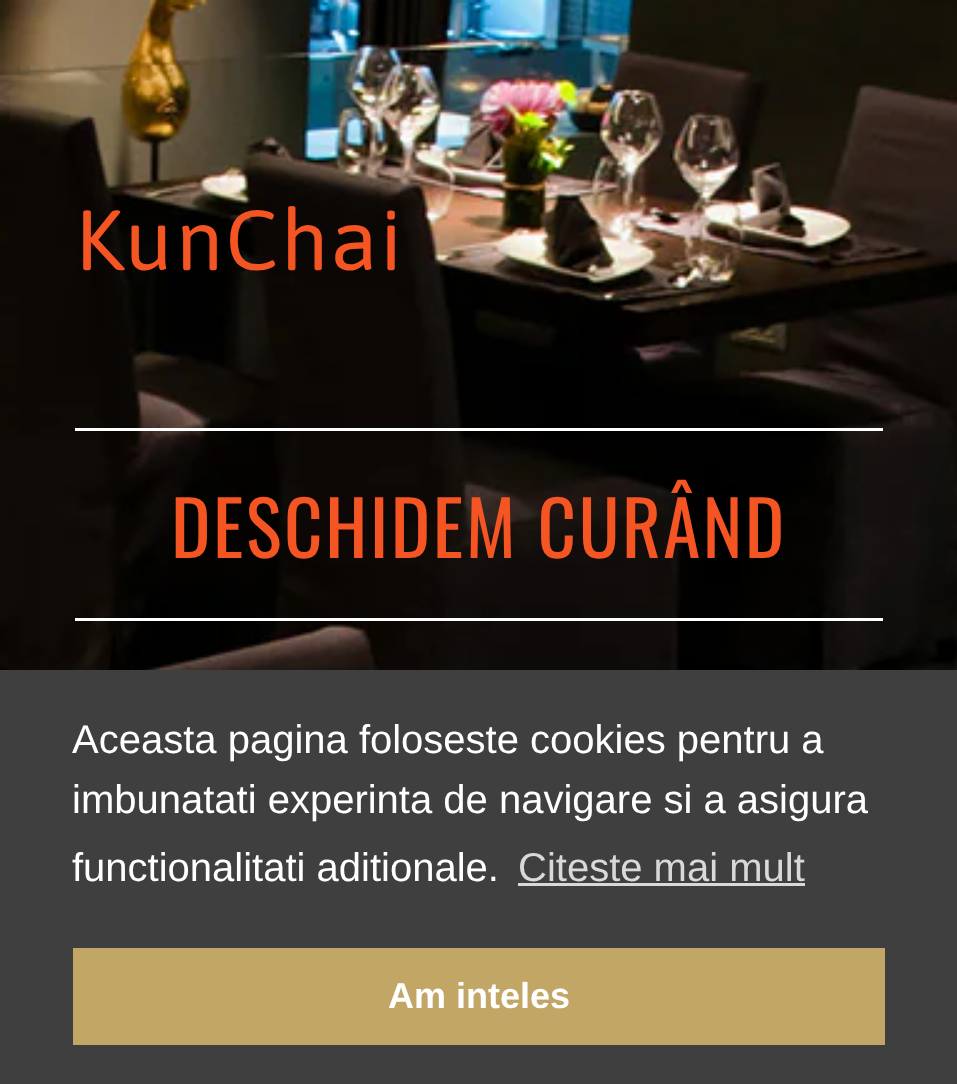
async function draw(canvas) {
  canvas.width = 957;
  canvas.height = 1084;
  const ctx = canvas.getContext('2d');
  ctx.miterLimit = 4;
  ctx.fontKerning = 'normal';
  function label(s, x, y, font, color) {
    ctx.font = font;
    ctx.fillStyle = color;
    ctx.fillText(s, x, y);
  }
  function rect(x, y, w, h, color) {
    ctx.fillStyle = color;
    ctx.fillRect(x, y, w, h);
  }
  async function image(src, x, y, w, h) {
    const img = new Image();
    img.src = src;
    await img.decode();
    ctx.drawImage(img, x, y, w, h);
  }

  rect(0, 0, 957, 1084, '#fff');
  await image('assets/img1.png', 0, 0, 957, 670);
  ctx.letterSpacing = '2.5px';
  label('KunChai', 75, 270, '85px Asap', '#f55423');
  rect(75, 428, 808, 3, '#fff');
  rect(75, 618, 808, 3, '#fff');
  label('DESCHIDEM CURÂND', 171, 558, '75px Oswald', '#f55423');
  rect(0, 670, 957, 414, '#3f3f3f');
  ctx.letterSpacing = '0px';
  label('Aceasta pagina foloseste cookies pentru a', 72, 753, '40px Liberation Sans', '#fff');
  label('imbunatati experinta de navigare si a asigura', 72, 813, '40px Liberation Sans', '#fff');
  label('functionalitati aditionale.', 72, 881, '40px Liberation Sans', '#fff');
  label('Citeste mai mult', 518, 881, '40px Liberation Sans', '#d9d9d9');
  rect(518, 883, 287, 3, '#d9d9d9');
  rect(73, 948, 812, 97, '#c2a666');
  label('Am inteles', 388, 1008, 'bold 36px Liberation Sans', '#fff');
}

draw(document.querySelector('canvas'));
